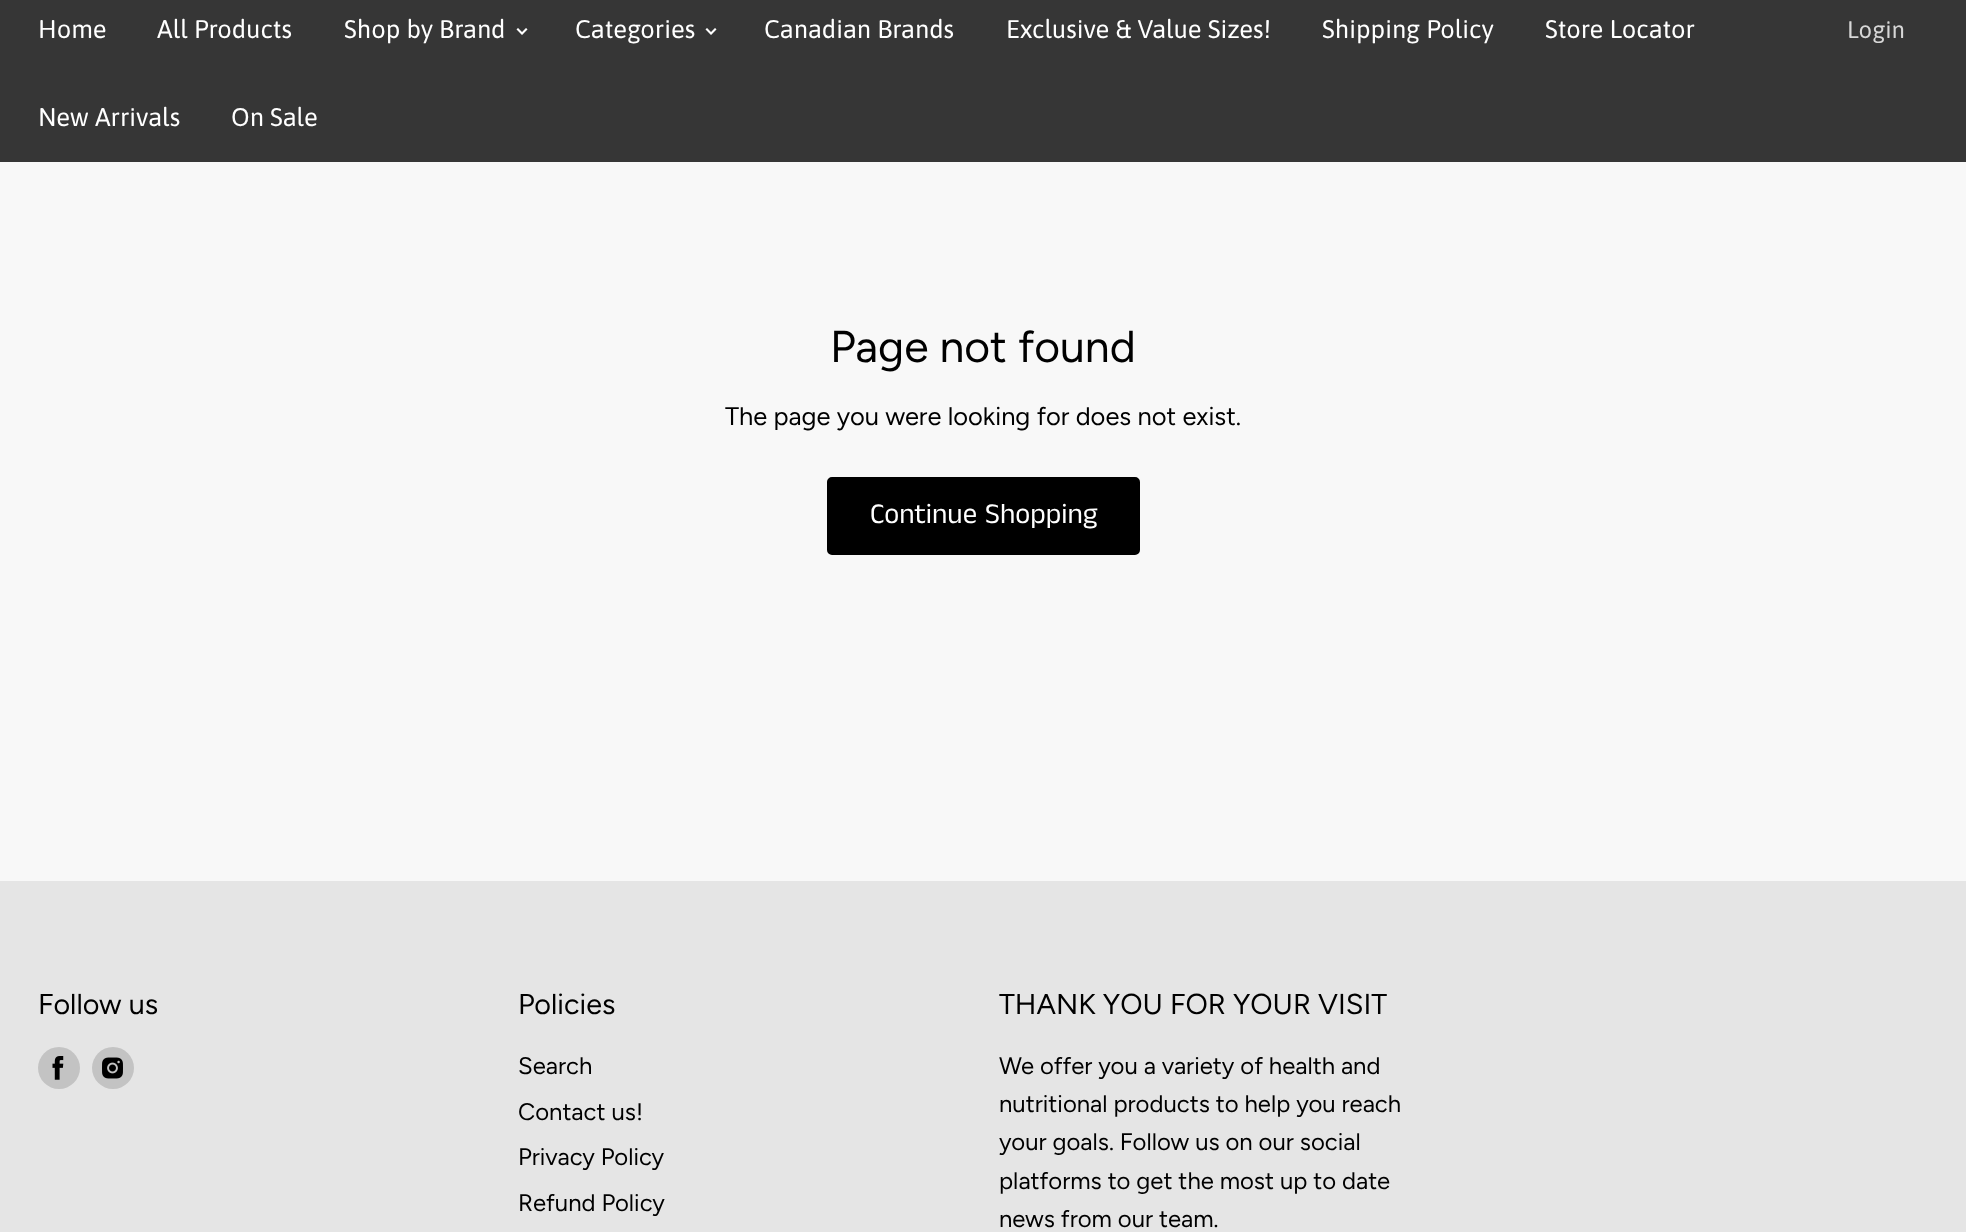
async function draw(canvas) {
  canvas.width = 1966;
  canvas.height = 1232;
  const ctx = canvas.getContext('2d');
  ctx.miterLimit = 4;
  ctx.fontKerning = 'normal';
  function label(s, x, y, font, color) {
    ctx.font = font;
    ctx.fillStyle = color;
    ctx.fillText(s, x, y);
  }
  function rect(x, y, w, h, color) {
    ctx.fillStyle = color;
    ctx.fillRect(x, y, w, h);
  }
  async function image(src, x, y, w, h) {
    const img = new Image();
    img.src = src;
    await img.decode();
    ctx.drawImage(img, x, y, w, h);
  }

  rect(0, 0, 1966, 1232, '#f8f8f8');
  rect(0, 0, 1966, 162, '#363636');
  label('Home', 38, 38, '25.5px Asap', '#fff');
  label('All Products', 157, 38, '25.5px Asap', '#fff');
  label('Shop by Brand', 344, 38, '25.5px Asap', '#fff');
  await image('assets/img1.png', 516, 28, 12, 7);
  label('Categories', 575, 38, '25.5px Asap', '#fff');
  await image('assets/img1.png', 705, 28, 12, 7);
  label('Canadian Brands', 764, 38, '25.5px Asap', '#fff');
  label('Exclusive & Value Sizes!', 1006, 38, '25.5px Asap', '#fff');
  label('Shipping Policy', 1322, 38, '25.5px Asap', '#fff');
  label('Store Locator', 1545, 38, '25.5px Asap', '#fff');
  label('New Arrivals', 38, 126, '25.5px Asap', '#fff');
  label('On Sale', 231, 126, '25.5px Asap', '#fff');
  label('Login', 1847, 38, '23.9px Asap', '#d7d7d7');
  label('Page not found', 830, 362, '44.5px Figtree', '#000');
  label('The page you were looking for does not exist.', 725, 425, '25.5px Figtree', '#000');
  ctx.beginPath();
  ctx.roundRect(828, 478, 311, 76, 4);
  ctx.fill();
  ctx.strokeStyle = '#000';
  ctx.lineWidth = 2;
  ctx.stroke();
  label('Continue Shopping', 870, 523, '28.75px Anek Tamil', '#fff');
  rect(0, 881, 1966, 351, '#e5e5e5');
  label('Follow us', 38, 1014, '28.75px Figtree', '#000');
  ctx.fillStyle = '#c3c3c3';
  ctx.beginPath();
  ctx.arc(59, 1068, 21, 0, 2 * Math.PI);
  ctx.fill();
  await image('assets/img2.png', 52, 1056, 12, 24);
  ctx.beginPath();
  ctx.arc(113, 1068, 21, 0, 2 * Math.PI);
  ctx.fill();
  await image('assets/img3.png', 102, 1057, 21, 22);
  label('Policies', 518, 1014, '28.75px Figtree', '#000');
  label('Search', 518, 1074, '23.9px Figtree', '#000');
  label('Contact us!', 518, 1120, '23.9px Figtree', '#000');
  label('Privacy Policy', 518, 1165, '23.9px Figtree', '#000');
  label('Refund Policy', 518, 1211, '23.9px Figtree', '#000');
  label('THANK YOU FOR YOUR VISIT', 999, 1014, '28.75px Figtree', '#000');
  label('We offer you a variety of health and', 999, 1074, '23.9px Figtree', '#000');
  label('nutritional products to help you reach', 999, 1112, '23.9px Figtree', '#000');
  label('your goals. Follow us on our social', 999, 1150, '23.9px Figtree', '#000');
  label('platforms to get the most up to date', 999, 1189, '23.9px Figtree', '#000');
  label('news from our team.', 999, 1227, '23.9px Figtree', '#000');
}

draw(document.querySelector('canvas'));
